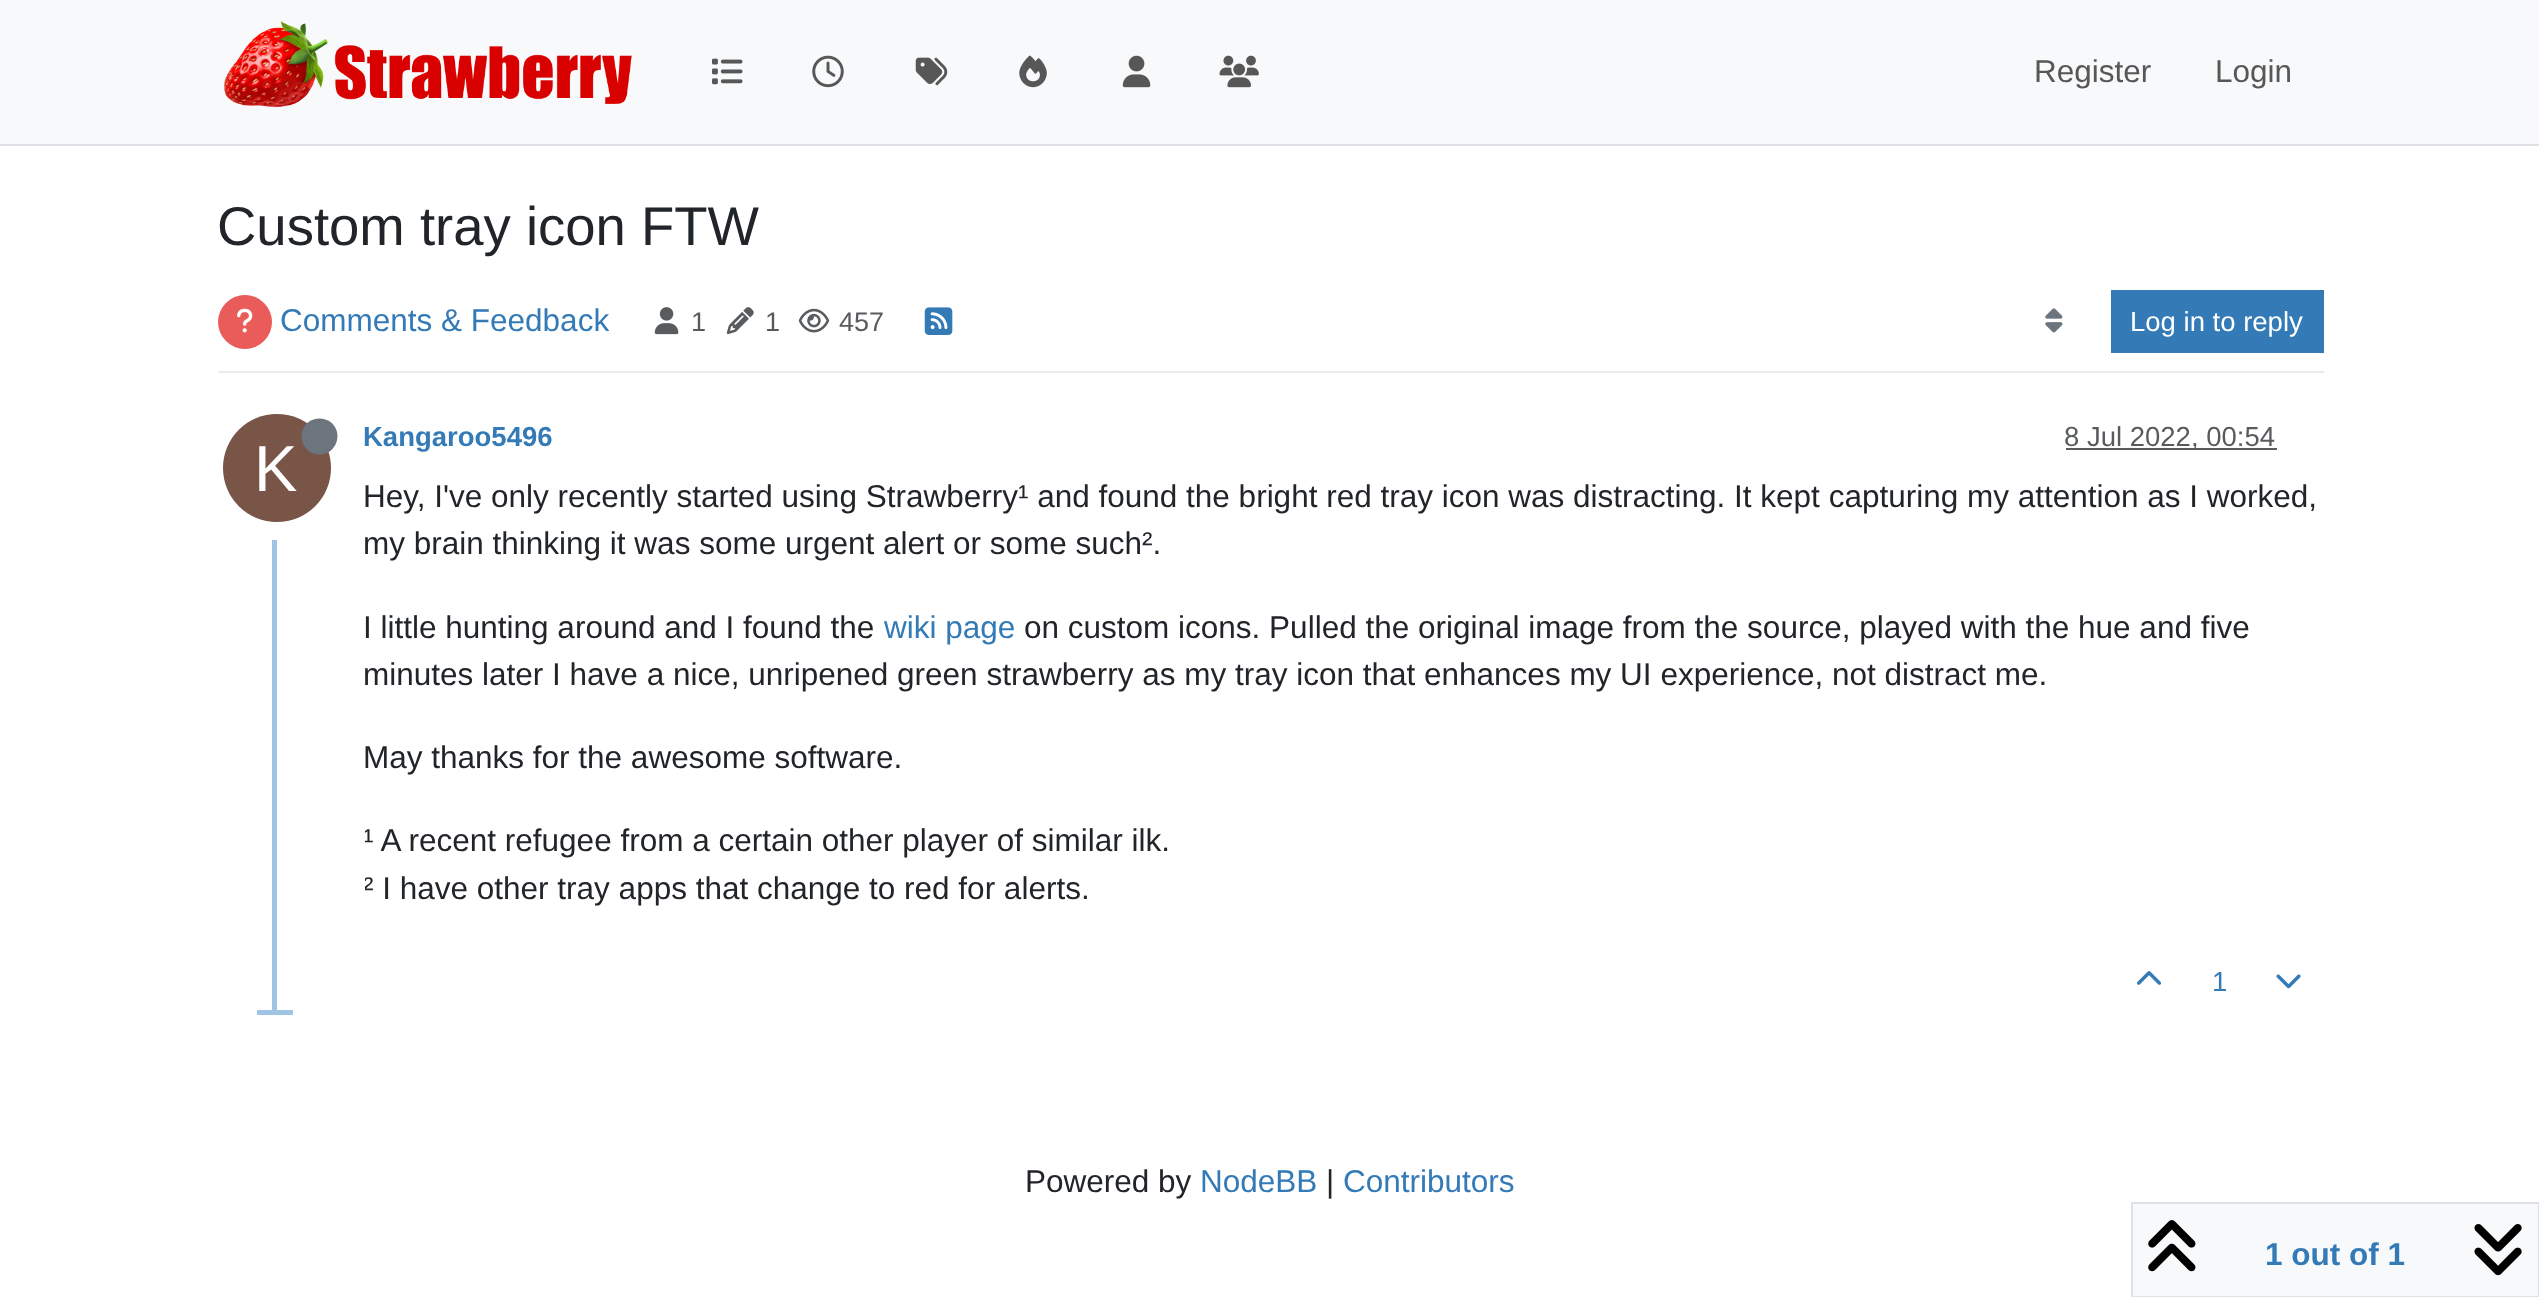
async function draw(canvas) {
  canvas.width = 2539;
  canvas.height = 1297;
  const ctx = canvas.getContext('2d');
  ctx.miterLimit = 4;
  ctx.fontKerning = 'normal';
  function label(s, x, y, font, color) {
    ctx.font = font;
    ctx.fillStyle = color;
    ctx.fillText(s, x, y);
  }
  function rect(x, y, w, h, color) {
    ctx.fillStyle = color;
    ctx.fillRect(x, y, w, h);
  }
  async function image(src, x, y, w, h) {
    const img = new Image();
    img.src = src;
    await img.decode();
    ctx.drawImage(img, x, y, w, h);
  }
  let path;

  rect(0, 0, 2539, 1297, '#fff');
  rect(0, 0, 2539, 144, '#f8f9fa');
  rect(0, 144, 2539, 2, '#dee2e6');
  await image('assets/img1.png', 224, 21, 408, 87);
  await image('assets/img2.png', 712, 58, 31, 27);
  await image('assets/img3.png', 812, 55, 32, 33);
  await image('assets/img4.png', 915, 57, 33, 29);
  await image('assets/img5.png', 1019, 55, 28, 33);
  await image('assets/img6.png', 1122, 55, 29, 33);
  await image('assets/img7.png', 1219, 55, 40, 33);
  label('Register', 2034, 82, '31.5px Liberation Sans', '#575758');
  label('Login', 2215, 82, '31.5px Liberation Sans', '#575758');
  label('Custom tray icon FTW', 217, 245, '54.5px Liberation Sans', '#212529');
  rect(218, 371, 2106, 2, '#e9ecef');
  ctx.fillStyle = '#e95c5a';
  ctx.beginPath();
  ctx.arc(245, 322, 27, 0, 2 * Math.PI);
  ctx.fill();
  await image('assets/img8.png', 237, 308, 16, 25);
  label('Comments & Feedback', 280, 331, '31.5px Liberation Sans', '#337ab7');
  await image('assets/img9.png', 654, 307, 25, 28);
  label('1', 691, 331, '27px Liberation Sans', '#585b5e');
  await image('assets/img10.png', 726, 307, 28, 28);
  label('1', 765, 331, '27px Liberation Sans', '#585b5e');
  await image('assets/img11.png', 798, 308, 32, 25);
  label('457', 839, 331, '27px Liberation Sans', '#585b5e');
  await image('assets/img12.png', 924, 307, 29, 28);
  await image('assets/img13.png', 2045, 308, 18, 25);
  rect(2111, 290, 213, 63, '#337ab7');
  label('Log in to reply', 2130, 331, '27.5px Liberation Sans', '#fff');
  rect(272, 410, 5, 605, '#a0c4e4');
  label('Kangaroo5496', 363, 446, 'bold 27.5px Liberation Sans', '#337ab7');
  rect(2066, 448, 211, 2, '#595c5f');
  label('8 Jul 2022, 00:54', 2064, 446, '27.5px Liberation Sans', '#585b5e');
  ctx.beginPath();
  ctx.arc(277, 468, 63, 0, 2 * Math.PI);
  ctx.strokeStyle = '#fff';
  ctx.lineWidth = 18;
  ctx.stroke();
  ctx.fillStyle = '#795548';
  ctx.beginPath();
  ctx.arc(277, 468, 54, 0, 2 * Math.PI);
  ctx.fill();
  ctx.fillStyle = '#6c757d';
  path = new Path2D('M319.5 454.5C336.5 454.5 344 432.5 330.5 422C327.5 420 323.5 418.5 319.5 418.5C315.5 418.5 311.5 420 308.5 422C295 432.5 302.5 454.5 319.5 454.5Z');
  ctx.fill(path);
  label('K', 254, 491, '65px Liberation Sans', '#fff');
  label('Hey, I\'ve only recently started using Strawberry¹ and found the bright red tray icon was distracting. It kept capturing my attention as I worked,', 363, 507, '31.5px Liberation Sans', '#212529');
  label('my brain thinking it was some urgent alert or some such².', 363, 554, '31.5px Liberation Sans', '#212529');
  label('I little hunting around and I found the', 363, 638, '31.5px Liberation Sans', '#212529');
  label('wiki page', 884, 638, '31.5px Liberation Sans', '#337ab7');
  label('on custom icons. Pulled the original image from the source, played with the hue and five', 1024, 638, '31.5px Liberation Sans', '#212529');
  label('minutes later I have a nice, unripened green strawberry as my tray icon that enhances my UI experience, not distract me.', 363, 685, '31.5px Liberation Sans', '#212529');
  label('May thanks for the awesome software.', 363, 768, '31.5px Liberation Sans', '#212529');
  ctx.save();
  ctx.beginPath();
  ctx.rect(365, 473, 1959, 477);
  ctx.clip();
  label('¹ A recent refugee from a certain other player of similar ilk.', 363, 851, '31.5px Liberation Sans', '#212529');
  label('² I have other tray apps that change to red for alerts.', 363, 899, '31.5px Liberation Sans', '#212529');
  ctx.restore();
  await image('assets/img14.png', 2137, 971, 25, 14);
  label('1', 2212, 991, '27.5px Liberation Sans', '#337ab7');
  await image('assets/img15.png', 2276, 974, 25, 15);
  rect(257, 1010, 36, 5, '#a0c4e4');
  ctx.fillStyle = '#f8f9fa';
  ctx.beginPath();
  ctx.rect(2132, 1203, 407, 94);
  ctx.fill();
  ctx.strokeStyle = '#dee2e6';
  ctx.lineWidth = 2;
  ctx.stroke();
  await image('assets/img16.png', 2148, 1220, 48, 52);
  label('1 out of 1', 2265, 1265, 'bold 31.5px Liberation Sans', '#337ab7');
  await image('assets/img17.png', 2474, 1224, 48, 52);
  label('Powered by', 1025, 1192, '31.5px Liberation Sans', '#212529');
  label('NodeBB', 1200, 1192, '31.5px Liberation Sans', '#337ab7');
  label('|', 1326, 1192, '31.5px Liberation Sans', '#212529');
  label('Contributors', 1343, 1192, '31.5px Liberation Sans', '#337ab7');
}

draw(document.querySelector('canvas'));
